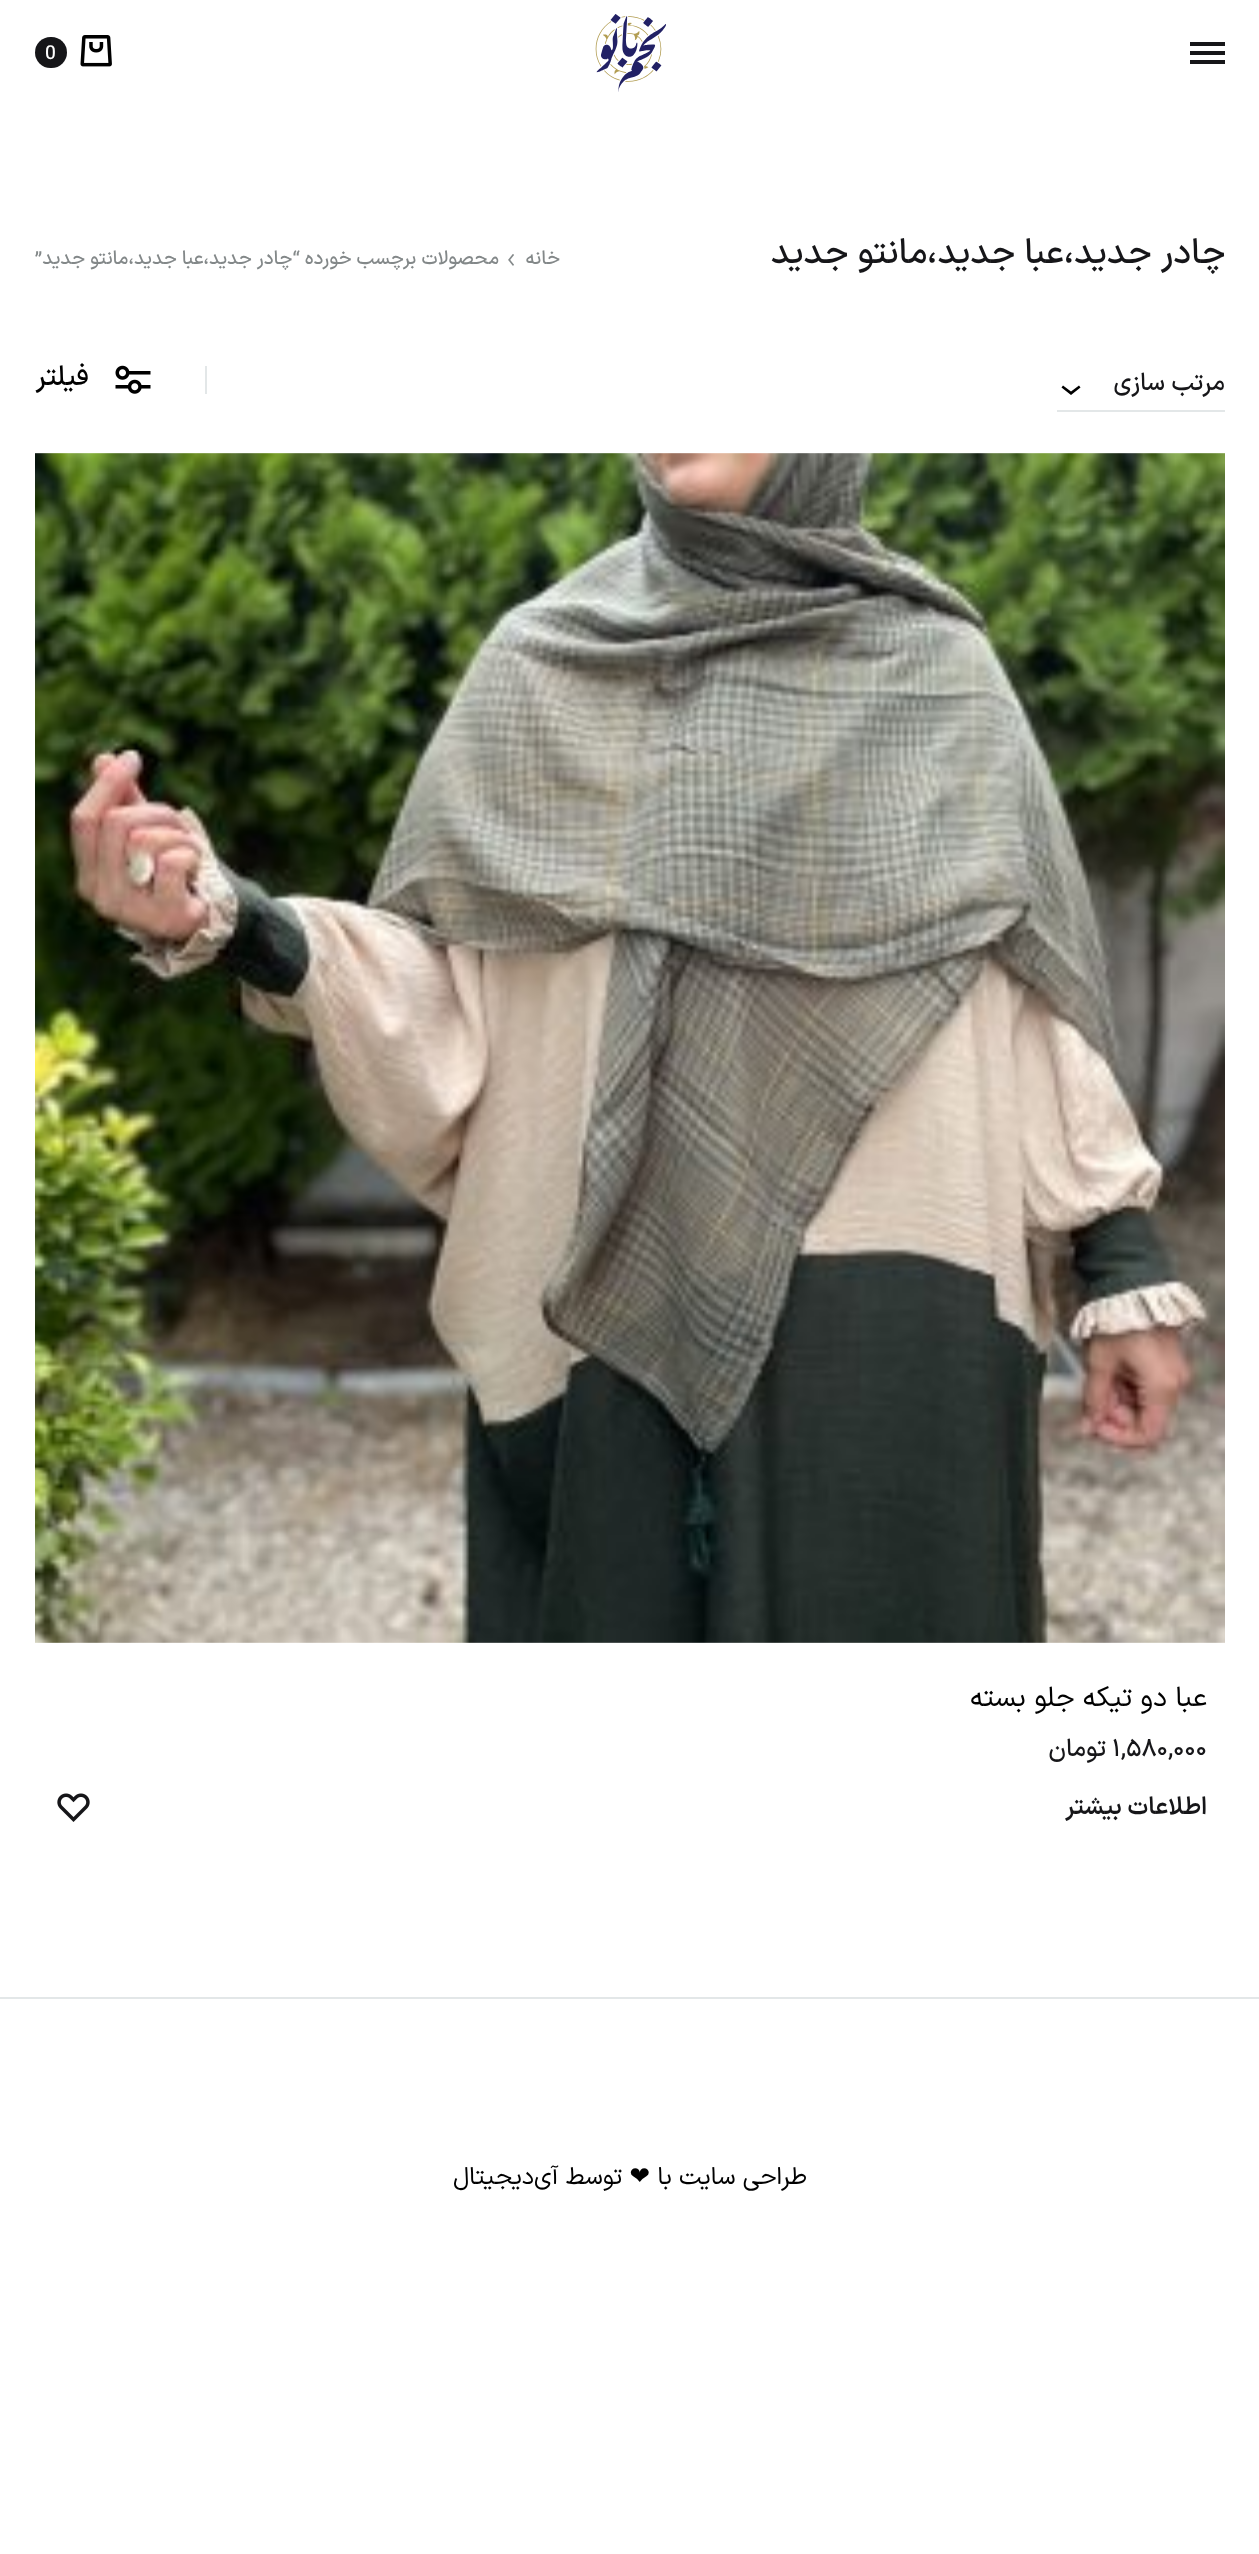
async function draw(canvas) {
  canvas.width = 1259;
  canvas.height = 2554;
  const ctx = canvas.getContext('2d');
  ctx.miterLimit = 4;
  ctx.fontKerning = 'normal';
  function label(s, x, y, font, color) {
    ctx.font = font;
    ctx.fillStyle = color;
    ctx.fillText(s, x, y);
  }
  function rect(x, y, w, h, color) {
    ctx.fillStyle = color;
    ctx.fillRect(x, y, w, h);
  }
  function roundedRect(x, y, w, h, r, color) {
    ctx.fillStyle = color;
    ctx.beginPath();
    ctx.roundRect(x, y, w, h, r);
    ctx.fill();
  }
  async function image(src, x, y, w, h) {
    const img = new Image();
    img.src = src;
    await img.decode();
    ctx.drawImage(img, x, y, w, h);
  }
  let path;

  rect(0, 0, 1259, 2554, '#fff');
  rect(1190, 51, 35, 4, '#161619');
  rect(1190, 42, 35, 4, '#161619');
  rect(1190, 60, 35, 4, '#161619');
  await image('assets/img1.png', 595, 14, 71, 78);
  await image('assets/img2.png', 80, 35, 32, 32);
  roundedRect(35, 37, 32, 31, 15.5, '#161619');
  label('0', 45, 59, '500 19.25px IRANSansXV', '#fff');
  ctx.direction = 'rtl';
  label('چادر جدید،عبا جدید،مانتو جدید', 1225, 263, '500 35px IRANSansXV', '#161619');
  label('خانه', 560, 264, '500 19.25px IRANSansXV', '#838889');
  await image('assets/img3.png', 508, 254, 6, 12);
  label('محصولات برچسب خورده “چادر جدید،عبا جدید،مانتو جدید”', 499, 264, '500 19.25px IRANSansXV', '#838889');
  rect(1057, 410, 168, 2, '#e3e7e8');
  label('مرتب سازی', 1225, 390, '500 24.5px IRANSansXV', '#161619');
  ctx.fillStyle = '#000';
  path = new Path2D('M1071 395L1061.5 387.5L1063 385.5L1071 391.5L1079 385.5L1080.5 387.5Z');
  ctx.fill(path);
  rect(205, 366, 2, 28, '#e3e7e8');
  await image('assets/img4.png', 115, 365, 36, 29);
  label('فیلتر', 89, 385, '500 28px IRANSansXV', '#000');
  await image('assets/img5.png', 35, 453, 1190, 1190);
  label('عبا دو تیکه جلو بسته', 1207, 1706, '28px IRANSansXV', '#000');
  ctx.direction = 'ltr';
  label('۱,۵۸۰,۰۰۰', 1112, 1756, '500 24.5px IRANSansXV', '#161619');
  ctx.direction = 'rtl';
  label('تومان', 1106, 1756, '500 24.5px IRANSansXV', '#161619');
  label('اطلاعات بیشتر', 1207, 1814, '600 24.5px IRANSansXV', '#161619');
  await image('assets/img6.png', 57, 1793, 33, 29);
  rect(0, 1997, 1259, 2, '#e3e7e8');
  label('طراحی سایت با', 807, 2184, '24.5px IRANSansXV', '#000');
  label('❤', 650, 2184, '24.5px DejaVu Sans', '#000');
  label('توسط آی‌دیجیتال', 622, 2184, '24.5px IRANSansXV', '#000');
}

draw(document.querySelector('canvas'));
